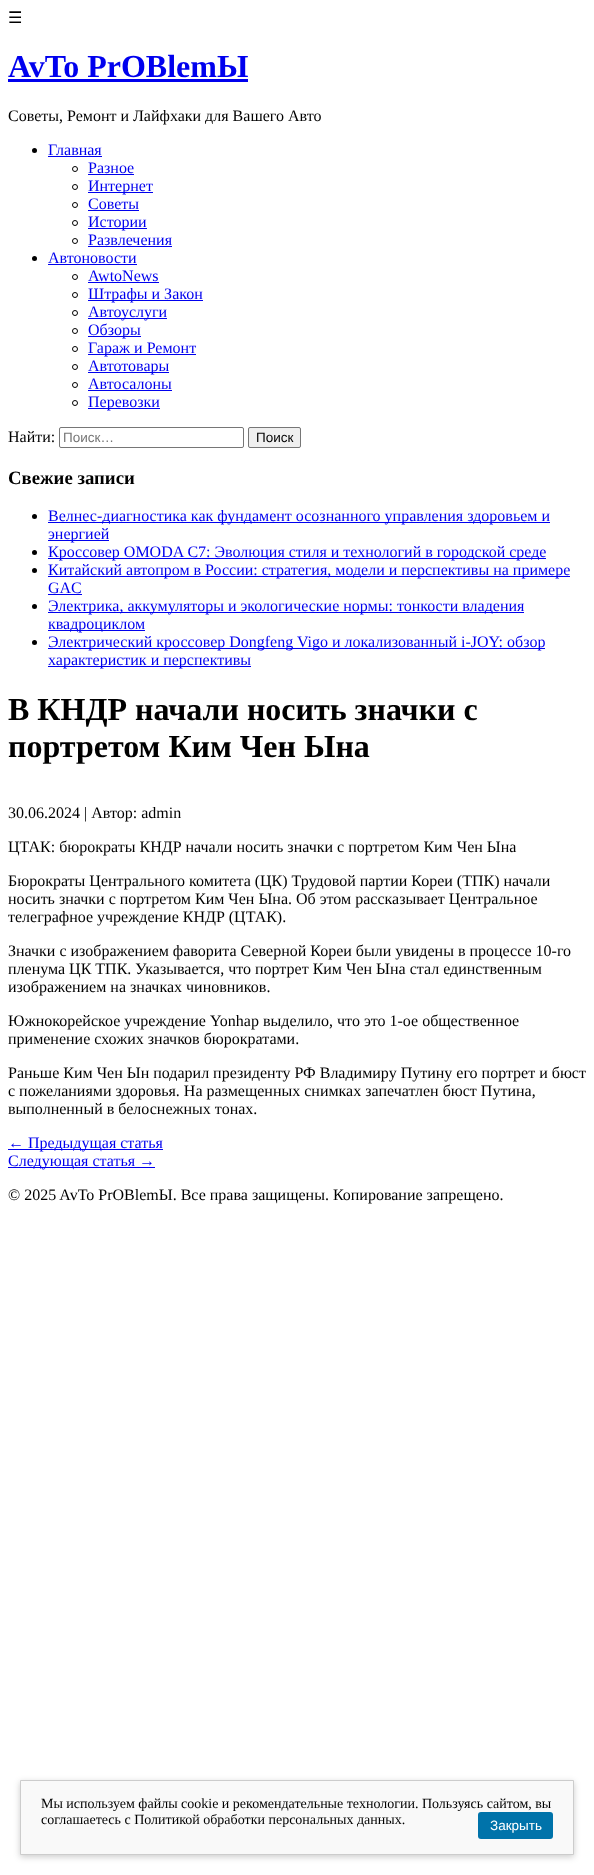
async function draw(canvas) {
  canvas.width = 594;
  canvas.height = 1875;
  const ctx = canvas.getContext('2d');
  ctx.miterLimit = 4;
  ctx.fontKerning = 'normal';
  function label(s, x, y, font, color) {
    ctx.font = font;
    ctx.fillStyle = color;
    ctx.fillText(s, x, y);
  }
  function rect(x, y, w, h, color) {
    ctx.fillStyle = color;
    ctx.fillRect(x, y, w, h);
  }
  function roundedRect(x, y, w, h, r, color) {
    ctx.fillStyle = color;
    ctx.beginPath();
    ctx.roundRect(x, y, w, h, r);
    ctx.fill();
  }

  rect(0, 0, 594, 1875, '#fff');
  label('☰', 8, 23, '16px DejaVu Sans', '#000');
  label('AvTo PrOBlemЫ', 8, 77, 'bold 32px Liberation Serif', '#00e');
  rect(8, 79, 240, 3, '#00e');
  label('Советы, Ремонт и Лайфхаки для Вашего Авто', 8, 121, '16px Liberation Serif', '#000');
  ctx.beginPath();
  ctx.arc(34.5, 150.5, 2.5, 0, 2 * Math.PI);
  ctx.fill();
  label('Главная', 48, 155, '16px Liberation Serif', '#00e');
  rect(48, 156, 54, 1, '#00e');
  ctx.beginPath();
  ctx.arc(75, 169, 2.5, 0, 2 * Math.PI);
  ctx.strokeStyle = '#000';
  ctx.stroke();
  label('Разное', 88, 173, '16px Liberation Serif', '#00e');
  rect(88, 174, 46, 1, '#00e');
  ctx.beginPath();
  ctx.arc(75, 187, 2.5, 0, 2 * Math.PI);
  ctx.stroke();
  rect(88, 192, 65, 1, '#00e');
  label('Интернет', 88, 191, '16px Liberation Serif', '#00e');
  ctx.beginPath();
  ctx.arc(75, 205, 2.5, 0, 2 * Math.PI);
  ctx.stroke();
  label('Советы', 88, 209, '16px Liberation Serif', '#00e');
  rect(88, 210, 51, 1, '#00e');
  ctx.beginPath();
  ctx.arc(75, 223, 2.5, 0, 2 * Math.PI);
  ctx.stroke();
  rect(88, 228, 59, 1, '#00e');
  label('Истории', 88, 227, '16px Liberation Serif', '#00e');
  ctx.beginPath();
  ctx.arc(75, 241, 2.5, 0, 2 * Math.PI);
  ctx.stroke();
  label('Развлечения', 88, 245, '16px Liberation Serif', '#00e');
  rect(88, 246, 84, 1, '#00e');
  ctx.fillStyle = '#000';
  ctx.beginPath();
  ctx.arc(34.5, 258.5, 2.5, 0, 2 * Math.PI);
  ctx.fill();
  label('Автоновости', 48, 263, '16px Liberation Serif', '#00e');
  rect(48, 264, 89, 1, '#00e');
  ctx.beginPath();
  ctx.arc(75, 277, 2.5, 0, 2 * Math.PI);
  ctx.stroke();
  label('AwtoNews', 88, 281, '16px Liberation Serif', '#00e');
  rect(88, 282, 71, 1, '#00e');
  ctx.beginPath();
  ctx.arc(75, 295, 2.5, 0, 2 * Math.PI);
  ctx.stroke();
  rect(88, 300, 115, 1, '#00e');
  label('Штрафы и Закон', 88, 299, '16px Liberation Serif', '#00e');
  ctx.beginPath();
  ctx.arc(75, 313, 2.5, 0, 2 * Math.PI);
  ctx.stroke();
  rect(88, 318, 79, 1, '#00e');
  label('Автоуслуги', 88, 317, '16px Liberation Serif', '#00e');
  ctx.beginPath();
  ctx.arc(75, 331, 2.5, 0, 2 * Math.PI);
  ctx.stroke();
  rect(88, 336, 53, 1, '#00e');
  label('Обзоры', 88, 335, '16px Liberation Serif', '#00e');
  ctx.beginPath();
  ctx.arc(75, 349, 2.5, 0, 2 * Math.PI);
  ctx.stroke();
  rect(88, 354, 108, 1, '#00e');
  label('Гараж и Ремонт', 88, 353, '16px Liberation Serif', '#00e');
  ctx.beginPath();
  ctx.arc(75, 367, 2.5, 0, 2 * Math.PI);
  ctx.stroke();
  rect(88, 372, 81, 1, '#00e');
  label('Автотовары', 88, 371, '16px Liberation Serif', '#00e');
  ctx.beginPath();
  ctx.arc(75, 385, 2.5, 0, 2 * Math.PI);
  ctx.stroke();
  label('Автосалоны', 88, 389, '16px Liberation Serif', '#00e');
  rect(88, 390, 84, 1, '#00e');
  ctx.beginPath();
  ctx.arc(75, 403, 2.5, 0, 2 * Math.PI);
  ctx.stroke();
  rect(88, 408, 72, 1, '#00e');
  label('Перевозки', 88, 407, '16px Liberation Serif', '#00e');
  label('Найти:', 8, 442, '16px Liberation Serif', '#000');
  ctx.beginPath();
  ctx.roundRect(59.5, 427.5, 184, 20, 1.5);
  ctx.strokeStyle = '#767676';
  ctx.stroke();
  label('Поиск…', 63, 442, '13.5px Liberation Sans', '#757575');
  ctx.fillStyle = '#efefef';
  ctx.beginPath();
  ctx.roundRect(248.5, 427.5, 52, 20, 1.5);
  ctx.fill();
  ctx.stroke();
  label('Поиск', 256, 442, '13.5px Liberation Sans', '#000');
  label('Свежие записи', 8, 484, 'bold 18.75px Liberation Serif', '#000');
  ctx.beginPath();
  ctx.arc(34.5, 516.5, 2.5, 0, 2 * Math.PI);
  ctx.fill();
  rect(48, 522, 502, 1, '#00e');
  label('Велнес-диагностика как фундамент осознанного управления здоровьем и', 48, 521, '16px Liberation Serif', '#00e');
  rect(48, 540, 61, 1, '#00e');
  label('энергией', 48, 539, '16px Liberation Serif', '#00e');
  ctx.fillStyle = '#000';
  ctx.beginPath();
  ctx.arc(34.5, 552.5, 2.5, 0, 2 * Math.PI);
  ctx.fill();
  rect(48, 558, 498, 1, '#00e');
  label('Кроссовер OMODA C7: Эволюция стиля и технологий в городской среде', 48, 557, '16px Liberation Serif', '#00e');
  ctx.fillStyle = '#000';
  ctx.beginPath();
  ctx.arc(34.5, 570.5, 2.5, 0, 2 * Math.PI);
  ctx.fill();
  rect(48, 576, 522, 1, '#00e');
  label('Китайский автопром в России: стратегия, модели и перспективы на примере', 48, 575, '16px Liberation Serif', '#00e');
  label('GAC', 48, 593, '16px Liberation Serif', '#00e');
  rect(48, 594, 34, 1, '#00e');
  ctx.fillStyle = '#000';
  ctx.beginPath();
  ctx.arc(34.5, 606.5, 2.5, 0, 2 * Math.PI);
  ctx.fill();
  rect(48, 612, 476, 1, '#00e');
  label('Электрика, аккумуляторы и экологические нормы: тонкости владения', 48, 611, '16px Liberation Serif', '#00e');
  rect(48, 630, 97, 1, '#00e');
  label('квадроциклом', 48, 629, '16px Liberation Serif', '#00e');
  ctx.fillStyle = '#000';
  ctx.beginPath();
  ctx.arc(34.5, 642.5, 2.5, 0, 2 * Math.PI);
  ctx.fill();
  rect(48, 648, 497, 1, '#00e');
  label('Электрический кроссовер Dongfeng Vigo и локализованный i-JOY: обзор', 48, 647, '16px Liberation Serif', '#00e');
  rect(48, 666, 203, 1, '#00e');
  label('характеристик и перспективы', 48, 665, '16px Liberation Serif', '#00e');
  label('В КНДР начали носить значки с', 8, 720, 'bold 32px Liberation Serif', '#000');
  label('портретом Ким Чен Ына', 8, 757, 'bold 32px Liberation Serif', '#000');
  label('30.06.2024 | Автор: admin', 8, 818, '16px Liberation Serif', '#000');
  label('ЦТАК: бюрократы КНДР начали носить значки с портретом Ким Чен Ына', 8, 852, '16px Liberation Serif', '#000');
  label('Бюрократы Центрального комитета (ЦК) Трудовой партии Кореи (ТПК) начали', 8, 886, '16px Liberation Serif', '#000');
  label('носить значки с портретом Ким Чен Ына. Об этом рассказывает Центральное', 8, 904, '16px Liberation Serif', '#000');
  label('телеграфное учреждение КНДР (ЦТАК).', 8, 922, '16px Liberation Serif', '#000');
  label('Значки с изображением фаворита Северной Кореи были увидены в процессе 10-го', 8, 956, '16px Liberation Serif', '#000');
  label('пленума ЦК ТПК. Указывается, что портрет Ким Чен Ына стал единственным', 8, 974, '16px Liberation Serif', '#000');
  label('изображением на значках чиновников.', 8, 992, '16px Liberation Serif', '#000');
  label('Южнокорейское учреждение Yonhap выделило, что это 1-ое общественное', 8, 1026, '16px Liberation Serif', '#000');
  label('применение схожих значков бюрократами.', 8, 1044, '16px Liberation Serif', '#000');
  label('Раньше Ким Чен Ын подарил президенту РФ Владимиру Путину его портрет и бюст', 8, 1078, '16px Liberation Serif', '#000');
  label('с пожеланиями здоровья. На размещенных снимках запечатлен бюст Путина,', 8, 1096, '16px Liberation Serif', '#000');
  label('выполненный в белоснежных тонах.', 8, 1114, '16px Liberation Serif', '#000');
  rect(8, 1149, 155, 1, '#00e');
  label('← Предыдущая статья', 8, 1148, '16px Liberation Serif', '#00e');
  rect(8, 1167, 147, 1, '#00e');
  label('Следующая статья →', 8, 1166, '16px Liberation Serif', '#00e');
  label('© 2025 AvTo PrOBlemЫ. Все права защищены. Копирование запрещено.', 8, 1200, '16px Liberation Serif', '#000');
  ctx.fillStyle = '#00000033';
  ctx.filter = 'blur(3px)';
  ctx.beginPath();
  ctx.rect(20, 1782, 554, 75);
  ctx.fill();
  ctx.filter = 'none';
  ctx.fillStyle = '#f9f9f9';
  ctx.beginPath();
  ctx.rect(20.5, 1780.5, 553, 74);
  ctx.fill();
  ctx.strokeStyle = '#ccc';
  ctx.stroke();
  label('Мы используем файлы cookie и рекомендательные технологии. Пользуясь сайтом, вы', 41, 1808, '14px Liberation Serif', '#000');
  label('соглашаетесь с Политикой обработки персональных данных.', 41, 1824, '14px Liberation Serif', '#000');
  roundedRect(478, 1812, 75, 27, 3, '#0073aa');
  label('Закрыть', 490, 1830, '13.5px Liberation Sans', '#fff');
}

draw(document.querySelector('canvas'));
